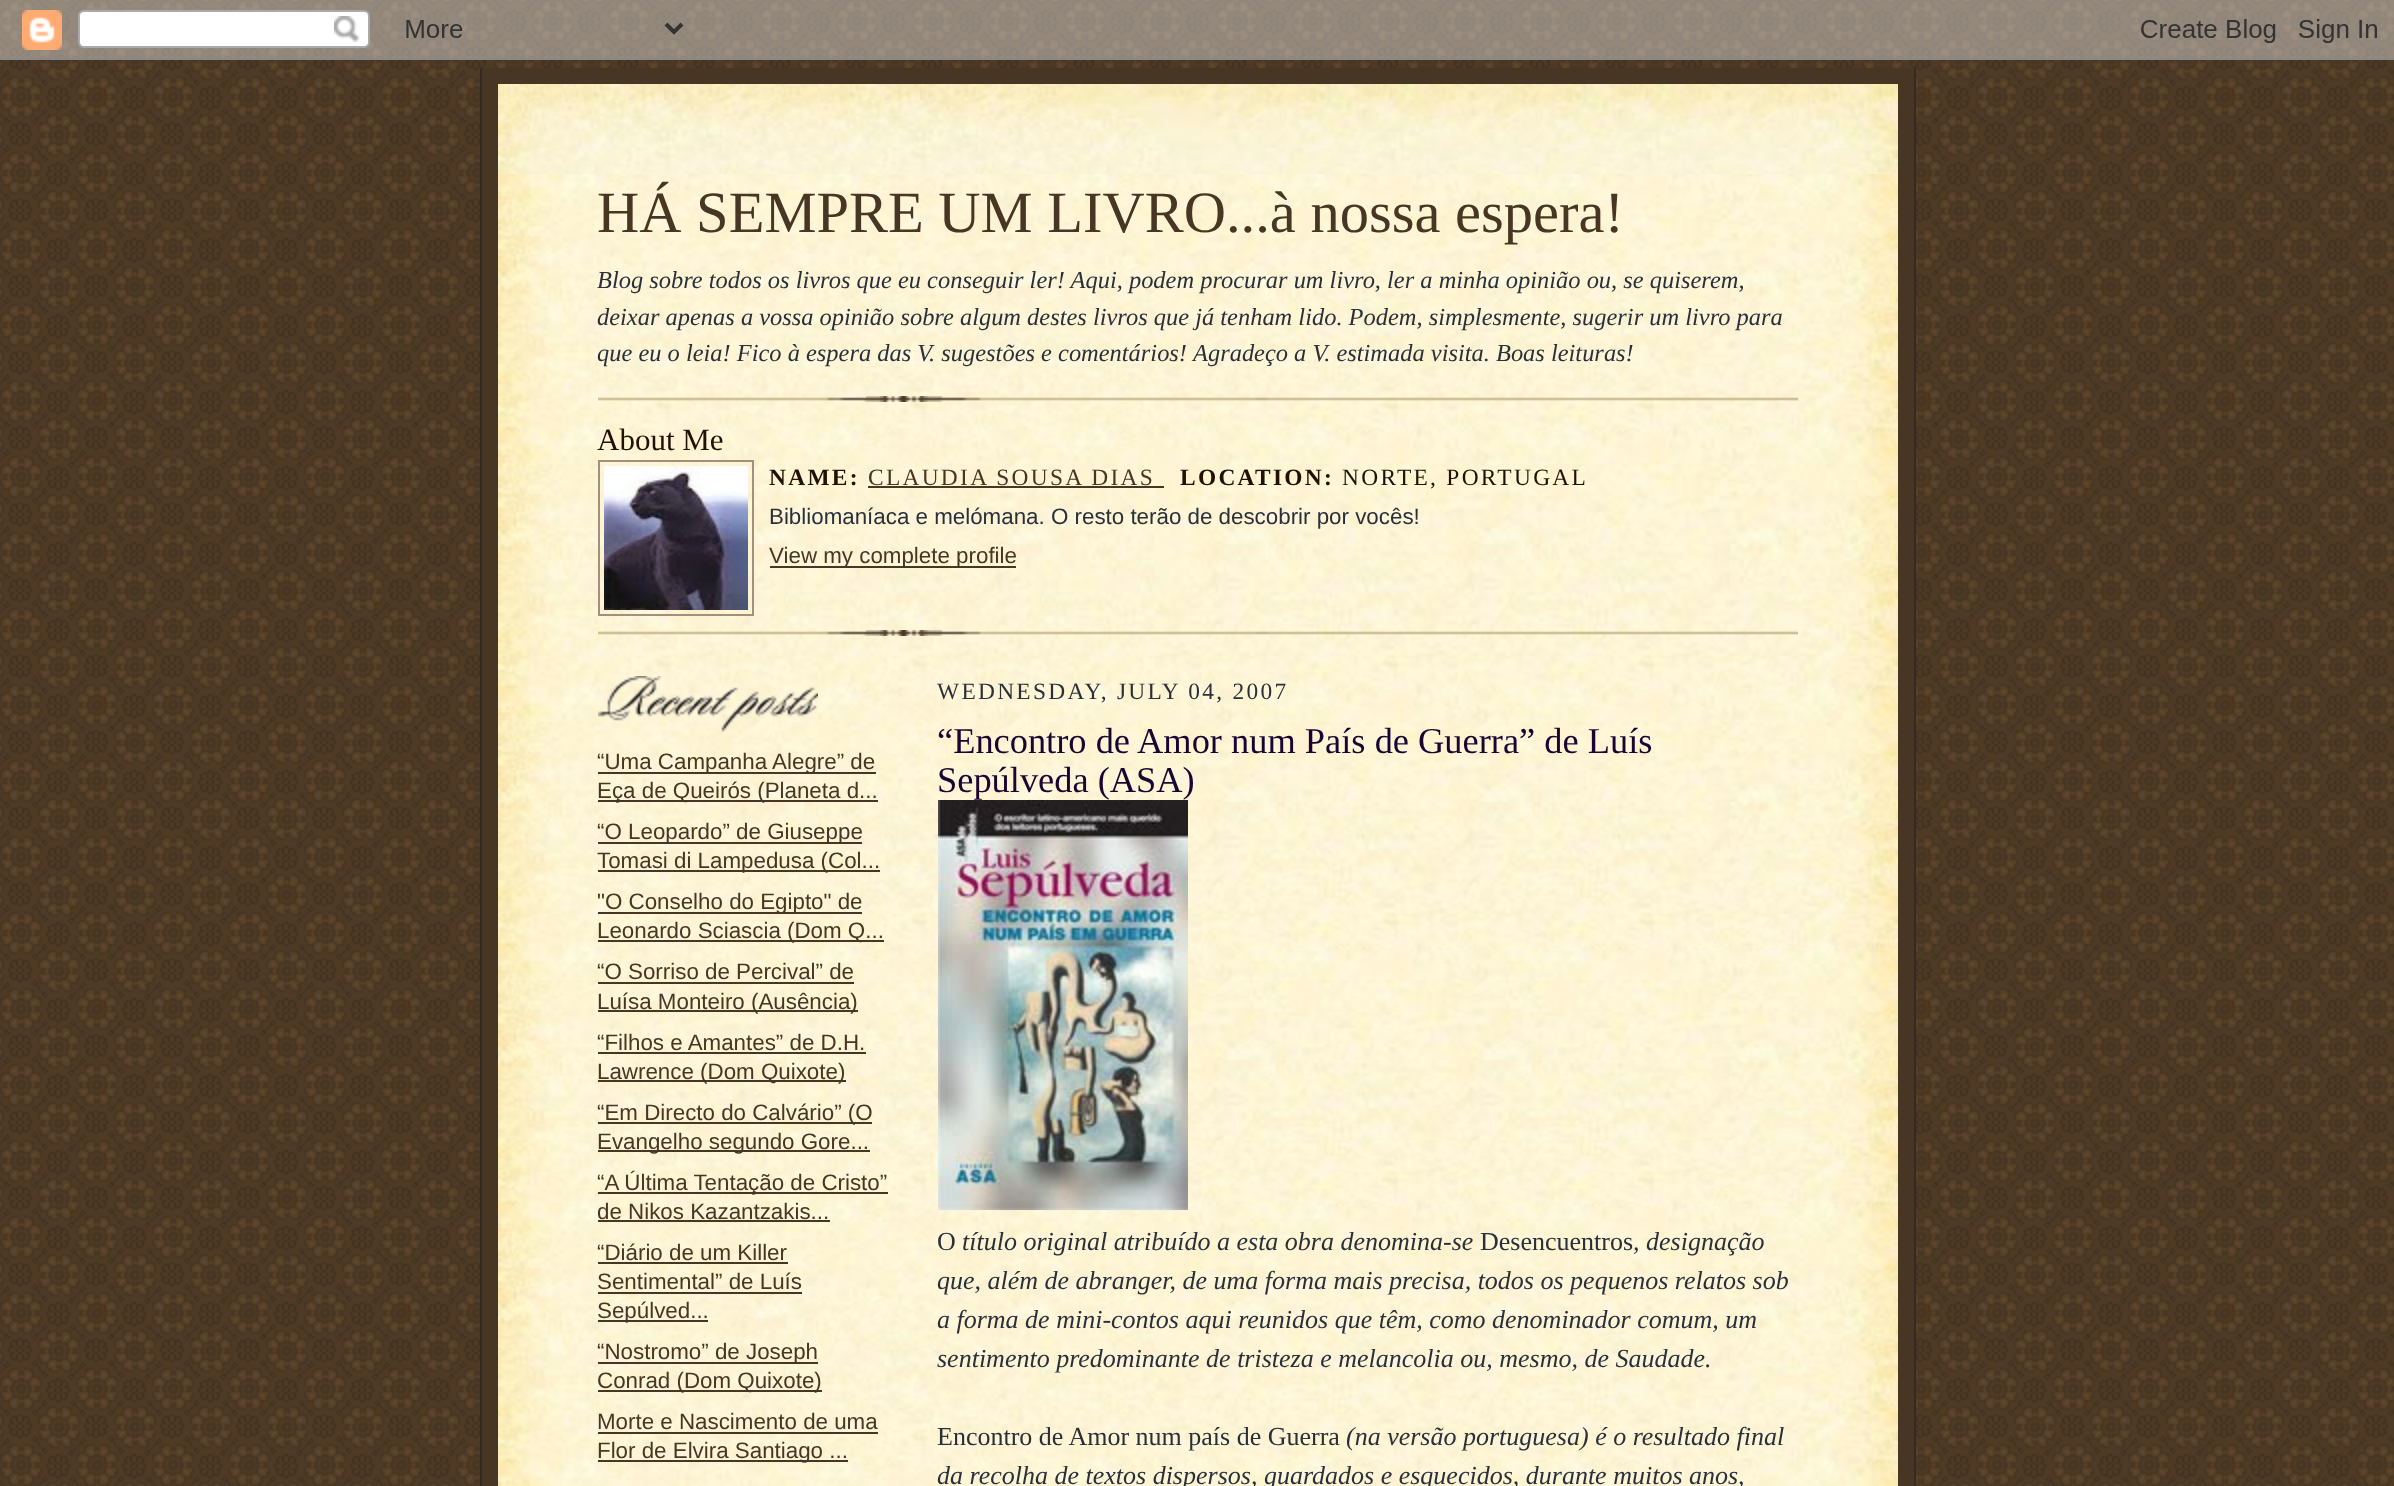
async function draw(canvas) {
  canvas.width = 2394;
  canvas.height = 1486;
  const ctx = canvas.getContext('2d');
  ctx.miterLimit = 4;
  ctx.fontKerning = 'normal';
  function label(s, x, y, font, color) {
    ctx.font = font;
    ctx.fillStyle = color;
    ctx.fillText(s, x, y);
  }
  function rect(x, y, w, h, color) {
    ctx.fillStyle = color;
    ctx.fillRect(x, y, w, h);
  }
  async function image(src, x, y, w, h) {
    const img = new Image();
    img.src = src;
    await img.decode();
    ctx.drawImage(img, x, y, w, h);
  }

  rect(0, 0, 2394, 1486, '#fff');
  await image('assets/img1.png', 0, 0, 2394, 1486);
  await image('assets/img2.png', 0, 0, 2394, 60);
  rect(482, 68, 1432, 1418, '#473624');
  rect(1914, 68, 2, 1418, '#332a24');
  rect(480, 68, 2, 1418, '#332a24');
  await image('assets/img3.png', 498, 84, 1400, 90);
  await image('assets/img4.png', 498, 174, 1400, 1312);
  label('HÁ SEMPRE UM LIVRO...à nossa espera!', 597, 232, '58.5px Liberation Serif', '#473624');
  label('Blog sobre todos os livros que eu conseguir ler! Aqui, podem procurar um livro, ler a minha opinião ou, se quiserem,', 597, 288, 'italic 24.45px Liberation Serif', '#29303b');
  label('deixar apenas a vossa opinião sobre algum destes livros que já tenham lido. Podem, simplesmente, sugerir um livro para', 597, 325, 'italic 24.45px Liberation Serif', '#29303b');
  label('que eu o leia! Fico à espera das V. sugestões e comentários!', 597, 361, 'italic 24.45px Liberation Serif', '#29303b');
  label('Agradeço a V. estimada visita. Boas leituras!', 1193, 361, 'italic 24.45px Liberation Serif', '#29303b');
  await image('assets/img5.png', 598, 396, 1200, 6);
  label('About Me', 597, 450, '31px Liberation Serif', '#211104');
  ctx.strokeStyle = '#a2907d';
  ctx.lineWidth = 2;
  ctx.strokeRect(599, 461, 154, 154);
  await image('assets/img6.png', 604, 466, 144, 144);
  ctx.letterSpacing = '2.3px';
  label('NAME:', 769, 485, 'bold 23.4px Liberation Serif', '#211104');
  label('CLAUDIA SOUSA DIAS', 868, 485, '23.4px Liberation Serif', '#473624');
  rect(868, 486, 296, 2, '#473624');
  label('LOCATION:', 1180, 485, 'bold 23.4px Liberation Serif', '#211104');
  label('NORTE, PORTUGAL', 1342, 485, '23.4px Liberation Serif', '#211104');
  ctx.letterSpacing = '0px';
  label('Bibliomaníaca e melómana. O resto terão de descobrir por vocês!', 769, 524, '22.35px Liberation Sans', '#29303b');
  rect(770, 566, 246, 2, '#473624');
  label('View my complete profile', 769, 563, '22.35px Liberation Sans', '#473624');
  await image('assets/img7.png', 598, 630, 1200, 6);
  await image('assets/img8.png', 598, 676, 220, 56);
  rect(598, 772, 278, 2, '#473624');
  label('“Uma Campanha Alegre” de', 597, 769, '22.35px Liberation Sans', '#473624');
  rect(598, 800, 280, 2, '#473624');
  label('Eça de Queirós (Planeta d...', 597, 798, '22.35px Liberation Sans', '#473624');
  rect(598, 842, 264, 2, '#473624');
  label('“O Leopardo” de Giuseppe', 597, 839, '22.35px Liberation Sans', '#473624');
  rect(598, 870, 282, 2, '#473624');
  label('Tomasi di Lampedusa (Col...', 597, 868, '22.35px Liberation Sans', '#473624');
  rect(598, 912, 264, 2, '#473624');
  label('"O Conselho do Egipto" de', 597, 909, '22.35px Liberation Sans', '#473624');
  rect(598, 940, 286, 2, '#473624');
  label('Leonardo Sciascia (Dom Q...', 597, 938, '22.35px Liberation Sans', '#473624');
  label('“O Sorriso de Percival” de', 597, 979, '22.35px Liberation Sans', '#473624');
  rect(598, 982, 256, 2, '#473624');
  rect(598, 1010, 260, 2, '#473624');
  label('Luísa Monteiro (Ausência)', 597, 1009, '22.35px Liberation Sans', '#473624');
  label('“Filhos e Amantes” de D.H.', 597, 1050, '22.35px Liberation Sans', '#473624');
  rect(598, 1052, 268, 2, '#473624');
  rect(598, 1080, 248, 2, '#473624');
  label('Lawrence (Dom Quixote)', 597, 1079, '22.35px Liberation Sans', '#473624');
  rect(598, 1122, 274, 2, '#473624');
  label('“Em Directo do Calvário” (O', 597, 1120, '22.35px Liberation Sans', '#473624');
  rect(598, 1150, 272, 2, '#473624');
  label('Evangelho segundo Gore...', 597, 1149, '22.35px Liberation Sans', '#473624');
  rect(598, 1192, 290, 2, '#473624');
  label('“A Última Tentação de Cristo”', 597, 1190, '22.35px Liberation Sans', '#473624');
  label('de Nikos Kazantzakis...', 597, 1219, '22.35px Liberation Sans', '#473624');
  rect(598, 1220, 232, 2, '#473624');
  label('“Diário de um Killer', 597, 1260, '22.35px Liberation Sans', '#473624');
  rect(598, 1262, 190, 2, '#473624');
  label('Sentimental” de Luís', 597, 1289, '22.35px Liberation Sans', '#473624');
  rect(598, 1292, 204, 2, '#473624');
  rect(598, 1320, 110, 2, '#473624');
  label('Sepúlved...', 597, 1318, '22.35px Liberation Sans', '#473624');
  rect(598, 1362, 220, 2, '#473624');
  label('“Nostromo” de Joseph', 597, 1359, '22.35px Liberation Sans', '#473624');
  rect(598, 1390, 224, 2, '#473624');
  label('Conrad (Dom Quixote)', 597, 1388, '22.35px Liberation Sans', '#473624');
  label('Morte e Nascimento de uma', 597, 1429, '22.35px Liberation Sans', '#473624');
  rect(598, 1432, 280, 2, '#473624');
  rect(598, 1460, 250, 2, '#473624');
  label('Flor de Elvira Santiago ...', 597, 1458, '22.35px Liberation Sans', '#473624');
  ctx.letterSpacing = '2.3px';
  label('WEDNESDAY, JULY 04, 2007', 937, 699, '23.4px Liberation Serif', '#29303b');
  ctx.letterSpacing = '0px';
  label('“Encontro de Amor num País de Guerra” de Luís', 937, 753, '36.4px Liberation Serif', '#1b0431');
  label('Sepúlveda (ASA)', 937, 792, '36.4px Liberation Serif', '#1b0431');
  await image('assets/img9.png', 938, 800, 250, 410);
  label('O', 937, 1250, '26px Liberation Serif', '#29303b');
  label('título original atribuído a esta obra denomina-se', 962, 1250, 'italic 26px Liberation Serif', '#29303b');
  label('Desencuentros', 1480, 1250, '26px Liberation Serif', '#29303b');
  label(', designação', 1633, 1250, 'italic 26px Liberation Serif', '#29303b');
  label('que, além de abranger, de uma forma mais precisa, todos os pequenos relatos sob', 937, 1289, 'italic 26px Liberation Serif', '#29303b');
  label('a forma de mini-contos aqui reunidos que têm, como denominador comum, um', 937, 1328, 'italic 26px Liberation Serif', '#29303b');
  label('sentimento predominante de tristeza e melancolia ou, mesmo, de Saudade.', 937, 1367, 'italic 26px Liberation Serif', '#29303b');
  label('Encontro de Amor num país de Guerra', 937, 1445, '26px Liberation Serif', '#29303b');
  label('(na versão portuguesa) é o resultado final', 1346, 1445, 'italic 26px Liberation Serif', '#29303b');
  label('da recolha de textos dispersos, guardados e esquecidos, durante muitos anos,', 937, 1484, 'italic 26px Liberation Serif', '#29303b');
}

draw(document.querySelector('canvas'));
